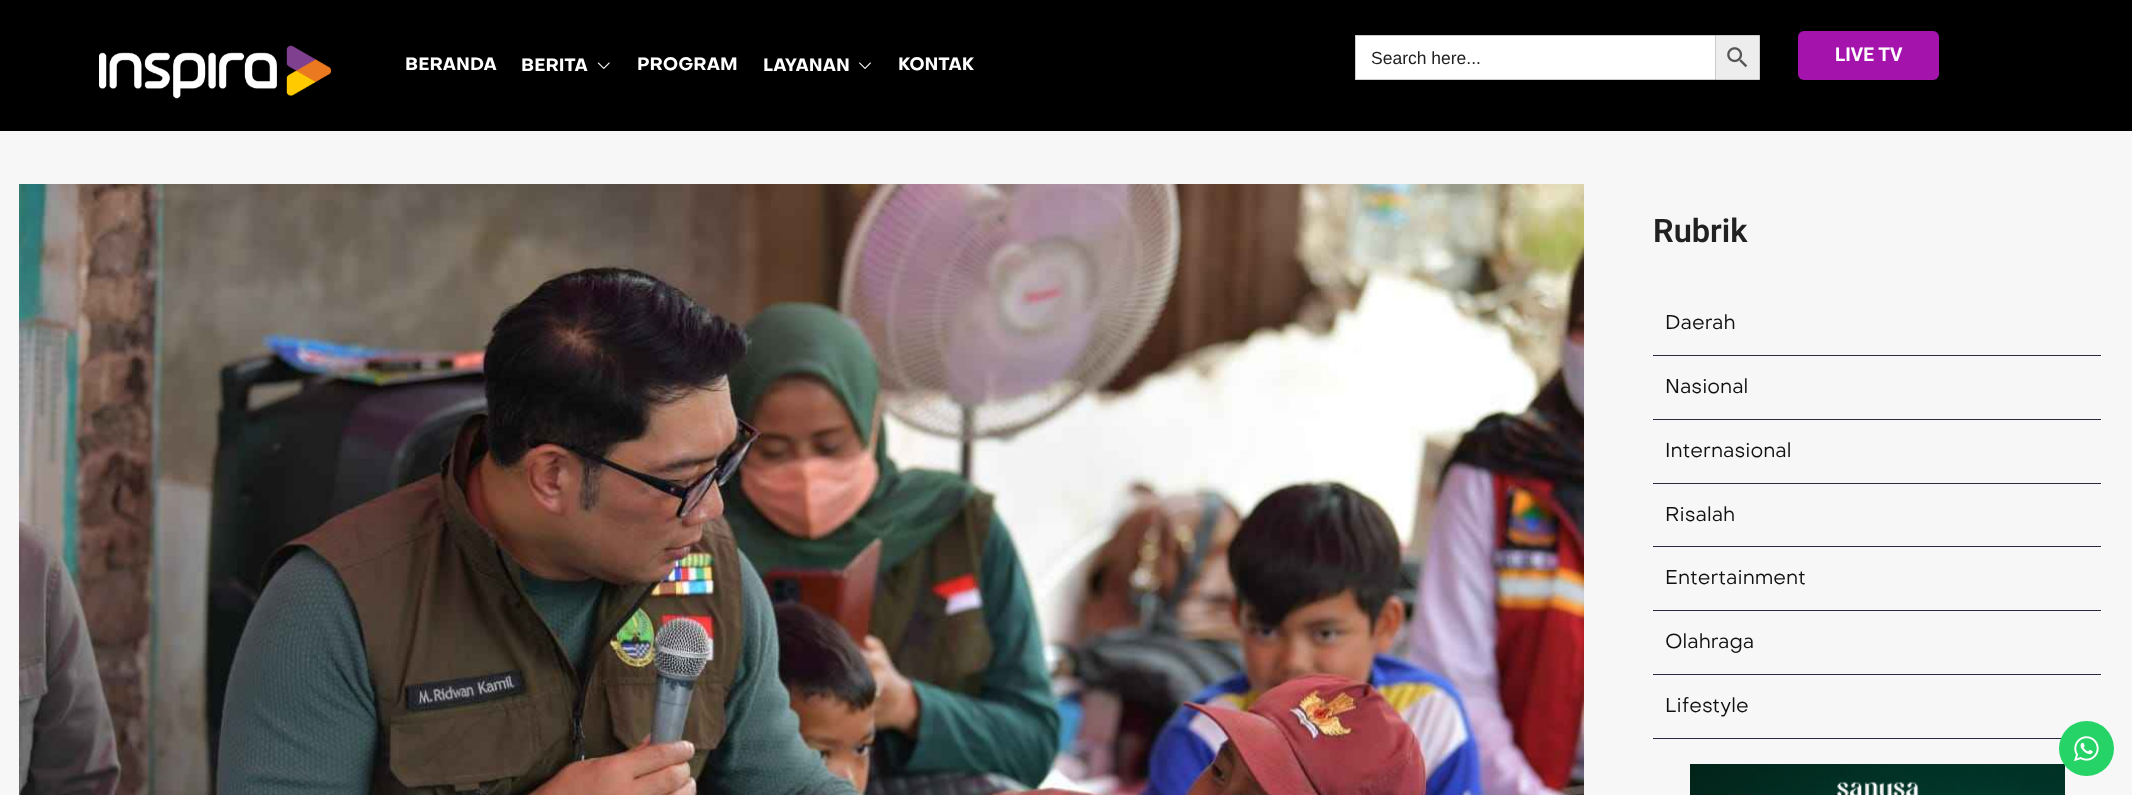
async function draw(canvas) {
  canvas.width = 2132;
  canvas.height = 795;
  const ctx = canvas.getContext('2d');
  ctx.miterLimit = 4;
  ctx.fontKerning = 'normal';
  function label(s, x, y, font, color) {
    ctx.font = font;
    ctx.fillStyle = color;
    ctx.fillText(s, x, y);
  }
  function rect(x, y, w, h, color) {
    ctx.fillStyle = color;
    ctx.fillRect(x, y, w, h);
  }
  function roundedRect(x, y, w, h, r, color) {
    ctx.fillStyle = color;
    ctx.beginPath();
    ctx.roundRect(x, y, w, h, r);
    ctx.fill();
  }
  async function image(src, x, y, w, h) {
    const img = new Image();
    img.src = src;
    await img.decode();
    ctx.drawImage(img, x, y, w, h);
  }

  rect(0, 0, 2132, 795, '#f7f7f7');
  rect(0, 0, 2132, 131, '#000');
  await image('assets/img1.png', 99, 45, 232, 54);
  label('BERANDA', 405, 70, 'bold 17.5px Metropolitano', '#fff');
  label('BERITA', 521, 71, 'bold 17.5px Metropolitano', '#fff');
  await image('assets/img2.png', 597, 62, 13, 7);
  label('PROGRAM', 637, 70, 'bold 17.5px Metropolitano', '#fff');
  label('LAYANAN', 763, 71, 'bold 17.5px Metropolitano', '#fff');
  await image('assets/img3.png', 859, 62, 12, 7);
  label('KONTAK', 898, 70, 'bold 17.5px Metropolitano', '#fff');
  rect(1356, 36, 359, 43, '#fff');
  rect(1355, 35, 360, 1, '#ccc');
  rect(1355, 79, 360, 1, '#ccc');
  rect(1355, 35, 1, 45, '#ccc');
  label('Search here...', 1371, 64, '17.5px Liberation Sans', '#212121');
  ctx.fillStyle = '#ededed';
  ctx.beginPath();
  ctx.rect(1715.5, 35.5, 44, 44);
  ctx.fill();
  ctx.strokeStyle = '#ccc';
  ctx.stroke();
  await image('assets/img4.png', 1727, 47, 21, 21);
  roundedRect(1798, 31, 141, 49, 6, '#a414ad');
  label('LIVE TV', 1835, 61, 'bold 19px Roboto', '#fff');
  await image('assets/img5.png', 19, 184, 1565, 611);
  label('Rubrik', 1653, 242, '600 32.5px Roboto', '#212121');
  rect(1653, 355, 448, 1, '#292c41');
  label('Daerah', 1665, 329, '20px Metropolitano', '#111');
  rect(1653, 419, 448, 1, '#292c41');
  label('Nasional', 1665, 393, '20px Metropolitano', '#111');
  rect(1653, 483, 448, 1, '#292c41');
  label('Internasional', 1665, 457, '20px Metropolitano', '#111');
  rect(1653, 546, 448, 1, '#292c41');
  label('Risalah', 1665, 521, '20px Metropolitano', '#111');
  rect(1653, 610, 448, 1, '#292c41');
  label('Entertainment', 1665, 584, '20px Metropolitano', '#111');
  rect(1653, 674, 448, 1, '#292c41');
  label('Olahraga', 1665, 648, '20px Metropolitano', '#111');
  rect(1653, 738, 409, 1, '#292c41');
  label('Lifestyle', 1665, 712, '20px Metropolitano', '#111');
  await image('assets/img6.png', 1690, 764, 375, 31);
  ctx.fillStyle = '#25d366';
  ctx.beginPath();
  ctx.arc(2086.5, 748.5, 27.5, 0, 2 * Math.PI);
  ctx.fill();
  await image('assets/img7.png', 2074, 736, 25, 25);
}

draw(document.querySelector('canvas'));
